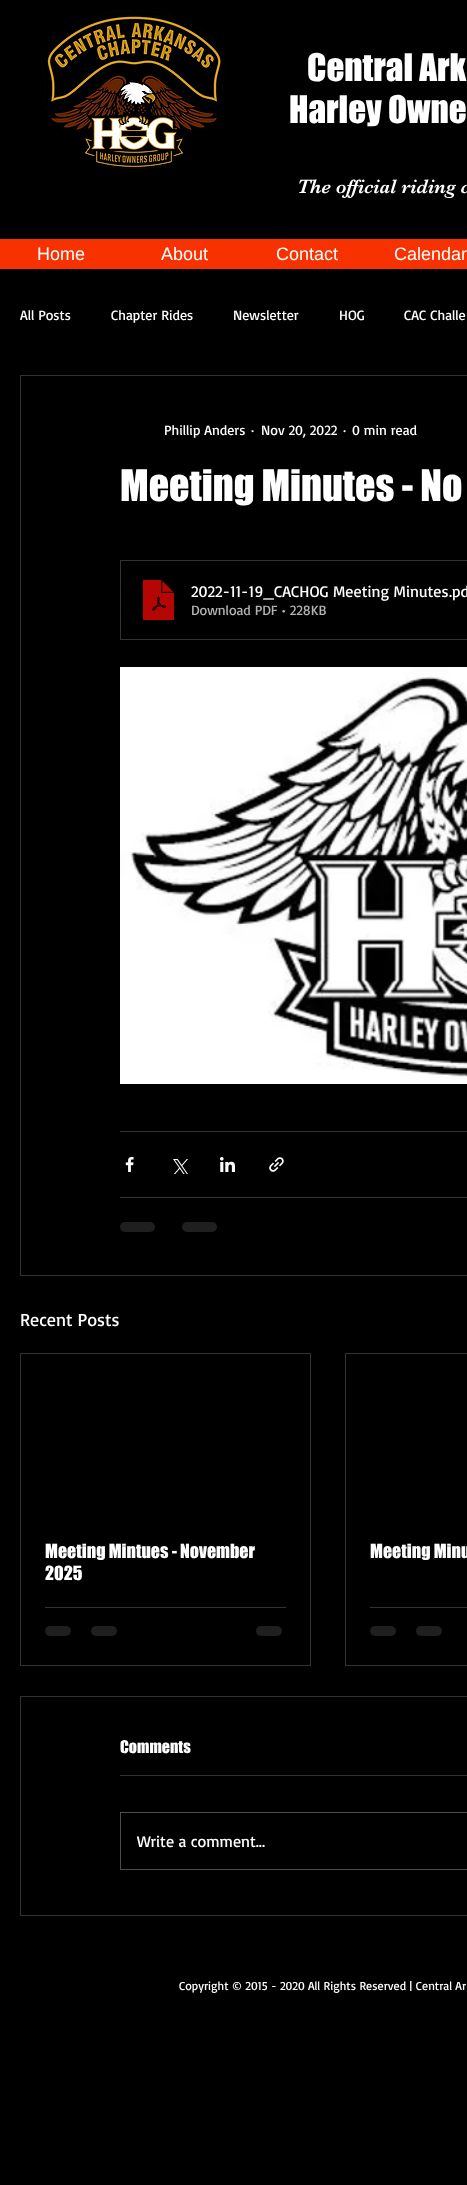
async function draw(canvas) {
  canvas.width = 467;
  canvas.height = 2185;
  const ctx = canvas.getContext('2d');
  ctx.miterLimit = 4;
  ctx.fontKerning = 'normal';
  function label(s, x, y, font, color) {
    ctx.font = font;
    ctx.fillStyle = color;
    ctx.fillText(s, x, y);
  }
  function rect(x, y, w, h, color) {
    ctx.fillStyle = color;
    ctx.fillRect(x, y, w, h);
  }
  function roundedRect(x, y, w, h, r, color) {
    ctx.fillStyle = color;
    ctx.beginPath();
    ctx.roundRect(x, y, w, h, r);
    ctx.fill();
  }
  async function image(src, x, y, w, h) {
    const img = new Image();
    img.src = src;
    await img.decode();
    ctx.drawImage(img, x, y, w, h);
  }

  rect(0, 0, 467, 2185, '#000');
  await image('assets/img1.png', 41, 10, 186, 159);
  label('Central Ark', 307, 81, '35px "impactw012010"', '#fff');
  label('Harley Owne', 289, 123, '35px "impactw012010"', '#fff');
  label('The official riding c', 297, 193, '20px "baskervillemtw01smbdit"', '#fff');
  rect(0, 239, 467, 30, '#f73200');
  label('Home', 37, 260, '18px Liberation Sans', '#fff');
  label('About', 161, 260, '18px Liberation Sans', '#fff');
  label('Contact', 276, 260, '18px Liberation Sans', '#fff');
  label('Calendar', 394, 260, '18px Liberation Sans', '#fff');
  label('All Posts', 20, 320, '14px Basic', '#fff');
  label('Chapter Rides', 111, 320, '14px Basic', '#fff');
  label('Newsletter', 233, 320, '14px Basic', '#fff');
  label('HOG', 339, 320, '14px Basic', '#fff');
  label('CAC Challe', 404, 320, '14px Basic', '#fff');
  ctx.strokeStyle = '#323232';
  ctx.strokeRect(20.5, 375.5, 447, 900);
  label('Phillip Anders', 164, 435, '14px Basic', '#fff');
  label('·', 251, 435, '14px Basic', '#fff');
  label('Nov 20, 2022', 261, 435, '14px Basic', '#fff');
  label('·', 343, 435, '14px Basic', '#fff');
  label('0 min read', 352, 435, '14px Basic', '#fff');
  label('Meeting Minutes - No', 120, 501, '40px "impactw012010"', '#fff');
  ctx.strokeStyle = '#333';
  ctx.strokeRect(120.5, 560.5, 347, 79);
  await image('assets/img2.png', 142, 579, 33, 42);
  label('2022-11-19_CACHOG Meeting Minutes', 191, 597, '16px Basic', '#fff');
  label('.pd', 449, 597, '16px Basic', '#fff');
  label('Download PDF • 228KB', 191, 615, '14px Basic', '#b3b3b3');
  await image('assets/img3.png', 120, 667, 347, 417);
  rect(120, 1131, 347, 1, '#333');
  await image('assets/img4.png', 125, 1157, 9, 15);
  await image('assets/img5.png', 173, 1159, 15, 15);
  await image('assets/img6.png', 220, 1157, 15, 15);
  await image('assets/img7.png', 269, 1157, 15, 15);
  rect(120, 1197, 347, 1, '#333');
  roundedRect(120, 1222, 35, 10, 5, '#1f1f1f');
  roundedRect(182, 1222, 35, 10, 5, '#1f1f1f');
  label('Recent Posts', 20, 1326, '18px Basic', '#fff');
  ctx.strokeStyle = '#323232';
  ctx.strokeRect(20.5, 1353.5, 290, 312);
  label('Meeting Mintues - November', 45, 1558, '18px "impactw012010"', '#fff');
  label('2025', 45, 1580, '18px "impactw012010"', '#fff');
  rect(45, 1607, 241, 1, '#333');
  roundedRect(45, 1626, 26, 10, 5, '#1f1f1f');
  roundedRect(91, 1626, 26, 10, 5, '#1f1f1f');
  roundedRect(256, 1626, 26, 10, 5, '#1f1f1f');
  ctx.strokeRect(345.5, 1353.5, 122, 312);
  label('Meeting Minu', 370, 1558, '18px "impactw012010"', '#fff');
  rect(370, 1607, 97, 1, '#333');
  roundedRect(370, 1626, 26, 10, 5, '#1f1f1f');
  roundedRect(416, 1626, 26, 10, 5, '#1f1f1f');
  ctx.strokeRect(20.5, 1696.5, 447, 219);
  label('Comments', 120, 1753, '16px "impactw012010"', '#fff');
  rect(120, 1775, 347, 1, '#333');
  ctx.strokeStyle = '#4d4d4d';
  ctx.strokeRect(120.5, 1812.5, 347, 57);
  label('Write a comment...', 137, 1847, '16px Basic', '#fff');
  label('Copyright © 2015 - 2020 All Rights Reserved | Central Ar', 179, 1990, '12px Basic', '#fff');
}

draw(document.querySelector('canvas'));
